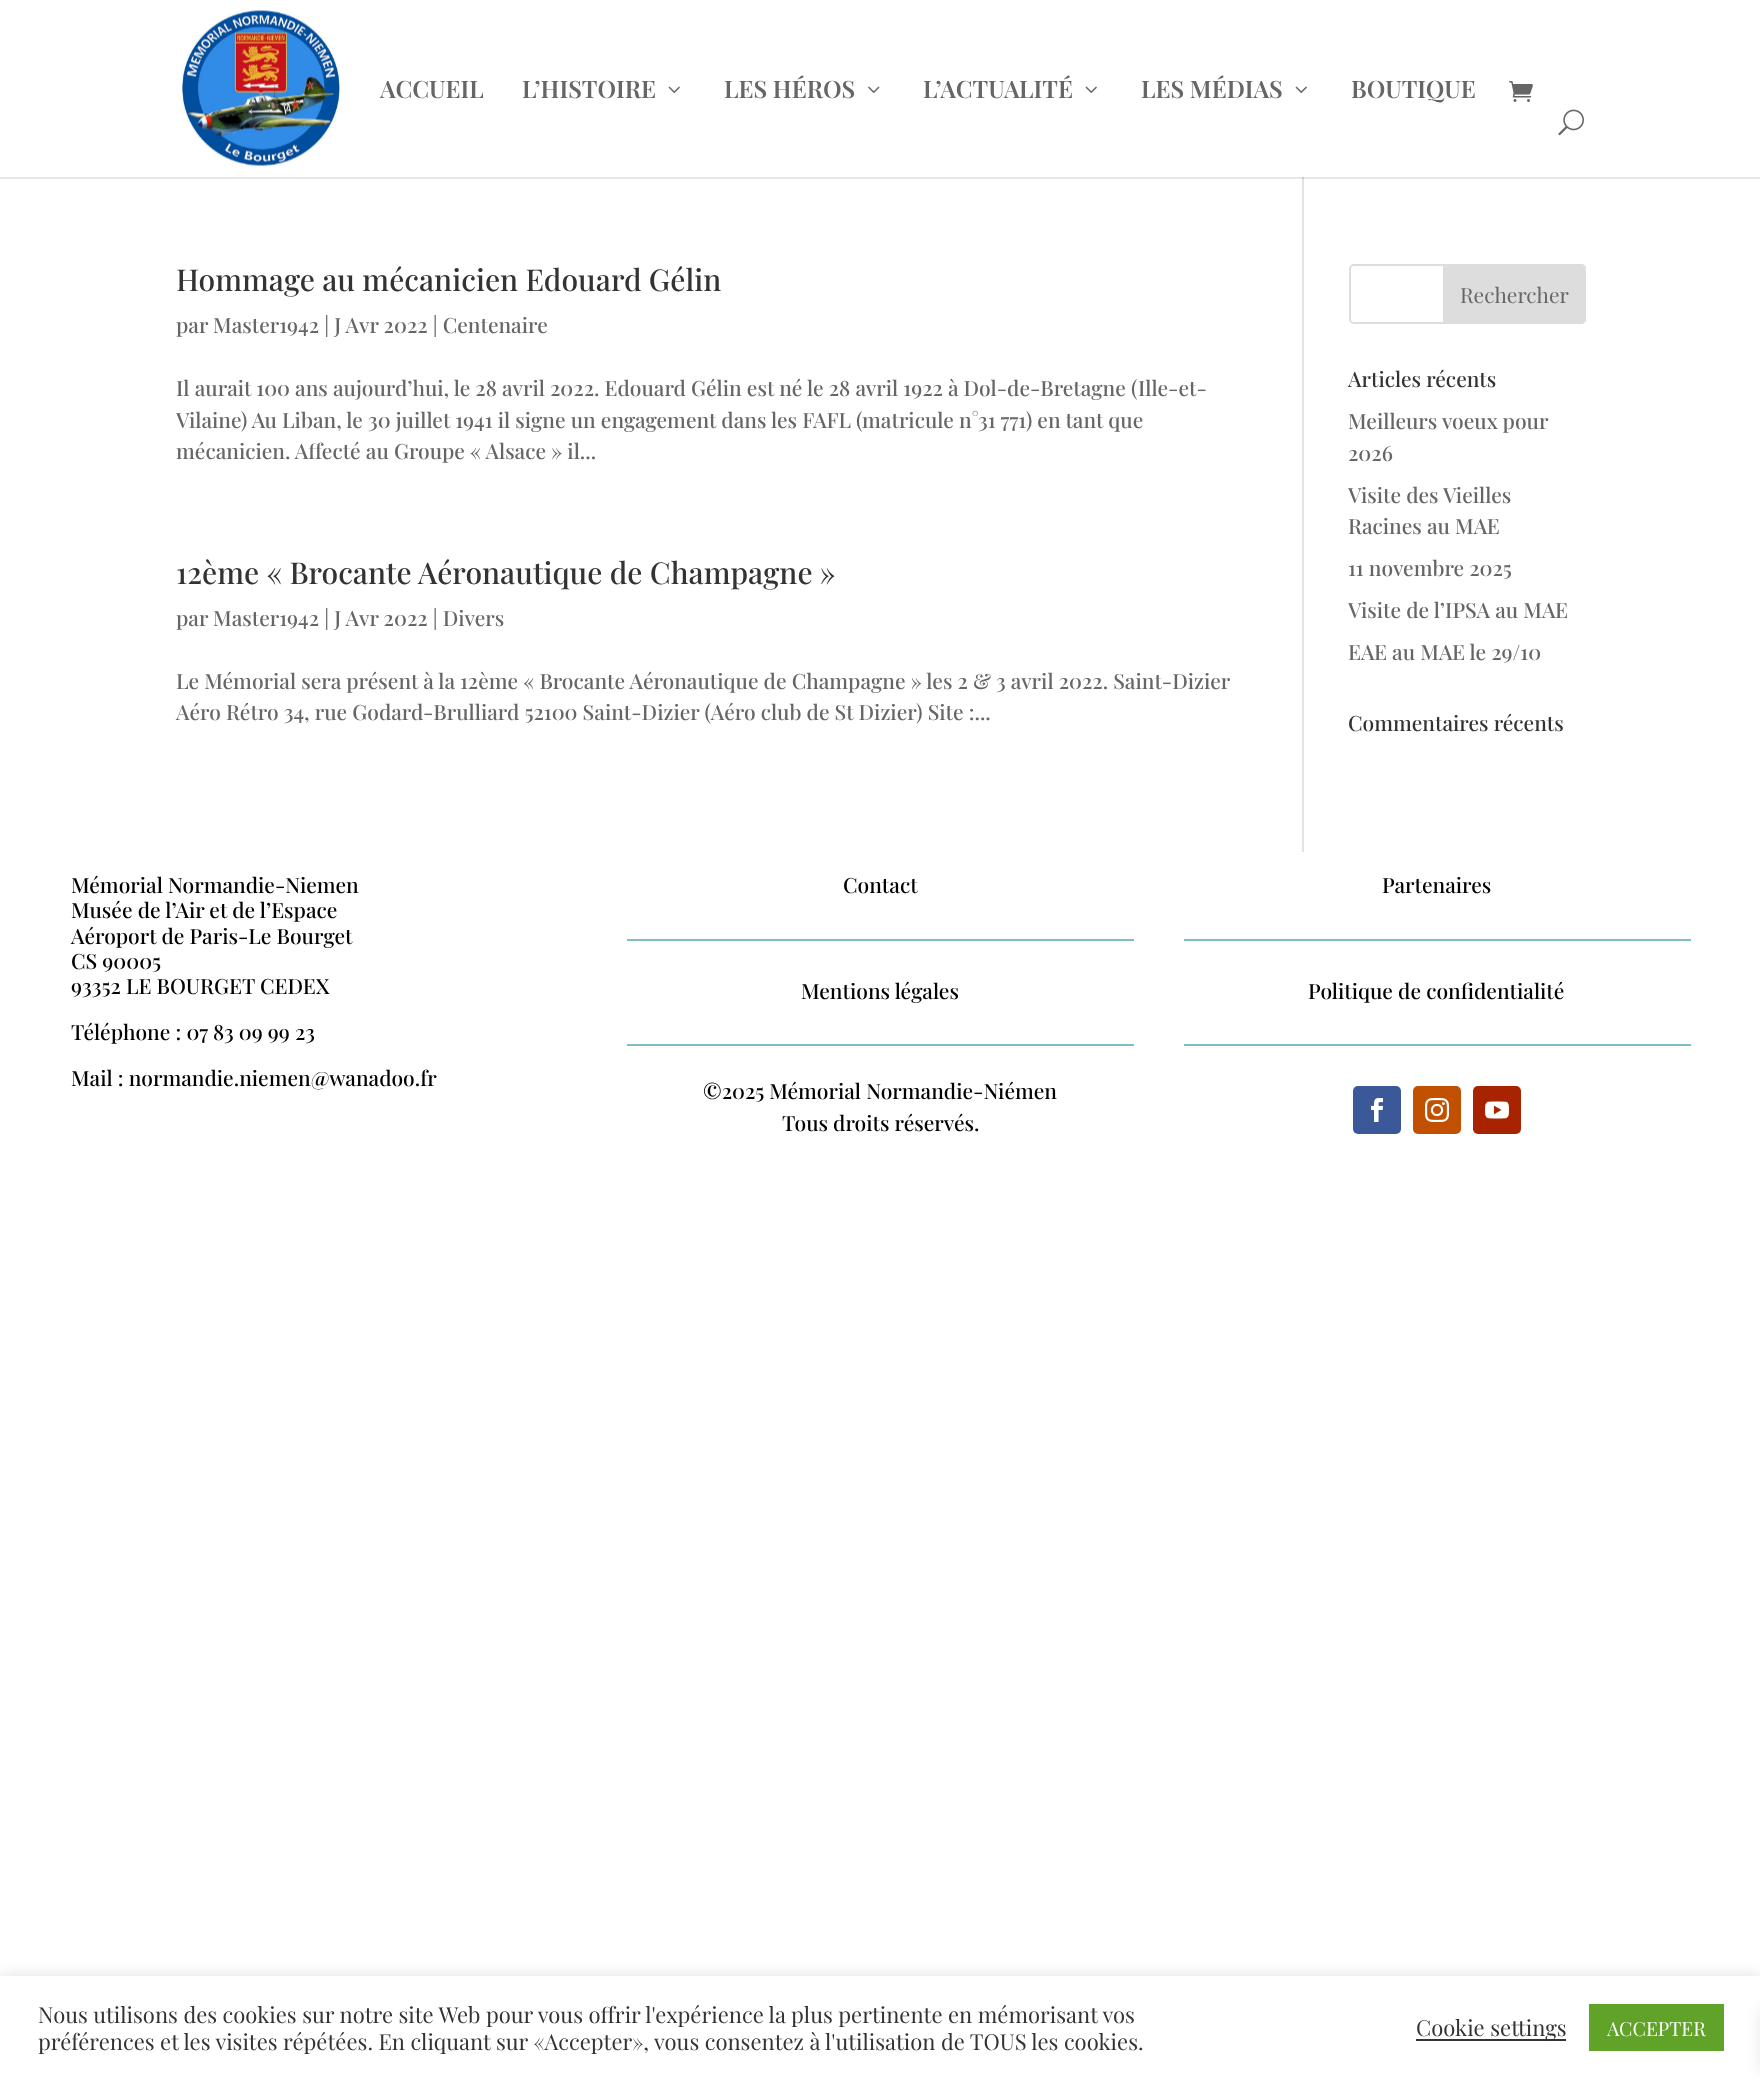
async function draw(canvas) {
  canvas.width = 1760;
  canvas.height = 2078;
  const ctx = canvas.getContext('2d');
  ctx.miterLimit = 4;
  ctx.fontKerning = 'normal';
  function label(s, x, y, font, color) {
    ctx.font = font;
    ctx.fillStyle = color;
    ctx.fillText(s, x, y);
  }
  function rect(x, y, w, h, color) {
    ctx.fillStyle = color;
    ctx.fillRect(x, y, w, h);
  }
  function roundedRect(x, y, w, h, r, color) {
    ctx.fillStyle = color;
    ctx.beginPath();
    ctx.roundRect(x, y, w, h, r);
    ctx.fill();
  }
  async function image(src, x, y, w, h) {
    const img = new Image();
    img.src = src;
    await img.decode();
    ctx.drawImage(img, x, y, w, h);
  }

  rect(0, 0, 1760, 2078, '#fff');
  rect(0, 177, 1760, 2, '#e6e6e6');
  await image('assets/img1.png', 181, 10, 160, 158);
  label('ACCUEIL', 380, 98, '600 24px Playfair Display', '#666');
  label('L’HISTOIRE', 522, 98, '600 24px Playfair Display', '#666');
  await image('assets/img2.png', 668, 86, 12, 7);
  label('LES HÉROS', 724, 98, '600 24px Playfair Display', '#666');
  await image('assets/img3.png', 868, 86, 12, 7);
  label('L’ACTUALITÉ', 923, 98, '600 24px Playfair Display', '#666');
  await image('assets/img2.png', 1085, 86, 12, 7);
  label('LES MÉDIAS', 1141, 98, '600 24px Playfair Display', '#666');
  await image('assets/img2.png', 1295, 86, 12, 7);
  label('BOUTIQUE', 1351, 98, '600 24px Playfair Display', '#666');
  await image('assets/img4.png', 1509, 81, 24, 21);
  await image('assets/img5.png', 1558, 109, 26, 27);
  rect(1302, 177, 2, 675, '#e2e2e2');
  rect(1302, 177, 2, 2, '#cbcbcb');
  label('Hommage au mécanicien Edouard Gélin', 176, 291, '500 30px Playfair Display', '#333');
  label('par Master1942 | J Avr 2022 | Centenaire', 176, 333, '500 21px Playfair Display', '#666');
  label('Il aurait 100 ans aujourd’hui, le 28 avril 2022. Edouard Gélin est né le 28 avril 1922 à Dol-de-Bretagne (Ille-et-', 176, 396, '500 21px Playfair Display', '#666');
  label('Vilaine) Au Liban, le 30 juillet 1941 il signe un engagement dans les FAFL (matricule n°31 771) en tant que', 176, 428, '500 21px Playfair Display', '#666');
  label('mécanicien. Affecté au Groupe « Alsace » il...', 176, 459, '500 21px Playfair Display', '#666');
  label('12ème « Brocante Aéronautique de Champagne »', 176, 584, '500 30px Playfair Display', '#333');
  label('par Master1942 | J Avr 2022 | Divers', 176, 626, '500 21px Playfair Display', '#666');
  label('Le Mémorial sera présent à la 12ème « Brocante Aéronautique de Champagne » les 2 & 3 avril 2022. Saint-Dizier', 176, 689, '500 21px Playfair Display', '#666');
  label('Aéro Rétro 34, rue Godard-Brulliard 52100 Saint-Dizier (Aéro club de St Dizier) Site :...', 176, 720, '500 21px Playfair Display', '#666');
  ctx.beginPath();
  ctx.roundRect(1350, 265, 235, 58, 4);
  ctx.strokeStyle = '#ddd';
  ctx.lineWidth = 2;
  ctx.stroke();
  ctx.fillStyle = '#ddd';
  ctx.beginPath();
  ctx.roundRect(1444, 265, 141, 58, [0, 4, 4, 0]);
  ctx.fill();
  ctx.stroke();
  label('Rechercher', 1460, 303, '21px Playfair Display', '#666');
  label('Articles récents', 1348, 387, '500 21px Playfair Display', '#333');
  label('Meilleurs voeux pour', 1348, 429, '500 21px Playfair Display', '#666');
  label('2026', 1348, 461, '500 21px Playfair Display', '#666');
  label('Visite des Vieilles', 1348, 503, '500 21px Playfair Display', '#666');
  label('Racines au MAE', 1348, 534, '500 21px Playfair Display', '#666');
  label('11 novembre 2025', 1348, 576, '500 21px Playfair Display', '#666');
  label('Visite de l’IPSA au MAE', 1348, 618, '500 21px Playfair Display', '#666');
  label('EAE au MAE le 29/10', 1348, 660, '500 21px Playfair Display', '#666');
  label('Commentaires récents', 1348, 731, '500 21px Playfair Display', '#333');
  label('Mémorial Normandie-Niemen', 71, 893, '500 21px Playfair Display', '#000');
  label('Musée de l’Air et de l’Espace', 71, 918, '500 21px Playfair Display', '#000');
  label('Aéroport de Paris-Le Bourget', 71, 944, '500 21px Playfair Display', '#000');
  label('CS 90005', 71, 969, '500 21px Playfair Display', '#000');
  label('93352 LE BOURGET CEDEX', 71, 994, '500 21px Playfair Display', '#000');
  label('Téléphone : 07 83 09 99 23', 71, 1040, '500 21px Playfair Display', '#000');
  label('Mail : normandie.niemen@wanadoo.fr', 71, 1086, '500 21px Playfair Display', '#000');
  label('Contact', 843, 893, '500 21px Playfair Display', '#000');
  rect(627, 939, 507, 2, '#7ebec5');
  label('Mentions légales', 801, 999, '500 21px Playfair Display', '#000');
  rect(627, 1044, 507, 2, '#7ebec5');
  label('©2025 Mémorial Normandie-Niémen', 703, 1099, '500 21px Playfair Display', '#000');
  label('Tous droits réservés.', 782, 1131, '500 21px Playfair Display', '#000');
  label('Partenaires', 1382, 893, '500 21px Playfair Display', '#000');
  rect(1184, 939, 507, 2, '#7ebec5');
  label('Politique de confidentialité', 1308, 999, '500 21px Playfair Display', '#000');
  rect(1184, 1044, 507, 2, '#7ebec5');
  roundedRect(1353, 1086, 48, 48, 5, '#3b5998');
  await image('assets/img6.png', 1371, 1098, 13, 24);
  roundedRect(1413, 1086, 48, 48, 5, '#c15000');
  await image('assets/img7.png', 1425, 1098, 24, 24);
  roundedRect(1473, 1086, 48, 48, 5, '#a82400');
  await image('assets/img8.png', 1485, 1101, 24, 18);
  ctx.save();
  ctx.beginPath();
  ctx.rect(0, 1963, 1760, 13);
  ctx.clip();
  ctx.fillStyle = '#acabab4d';
  ctx.filter = 'blur(7.5px)';
  ctx.beginPath();
  ctx.rect(0, 1974, 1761, 104);
  ctx.fill();
  ctx.filter = 'none';
  ctx.restore();
  label('Nous utilisons des cookies sur notre site Web pour vous offrir l\'expérience la plus pertinente en mémorisant vos', 38, 2023, '22px Playfair Display', '#333');
  label('préférences et les visites répétées. En cliquant sur «Accepter», vous consentez à l\'utilisation de TOUS les cookies.', 38, 2050, '22px Playfair Display', '#333');
  rect(1416, 2039, 150, 2, '#333');
  label('Cookie settings', 1416, 2036, '22px Playfair Display', '#333');
  rect(1589, 2004, 135, 47, '#61a229');
  label('ACCEPTER', 1607, 2036, '19.5px Playfair Display', '#fff');
  ctx.fillStyle = '#0000001a';
  ctx.filter = 'blur(7.5px)';
  ctx.beginPath();
  ctx.rect(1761, 2010, 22, 62);
  ctx.fill();
  ctx.filter = 'none';
}

draw(document.querySelector('canvas'));
